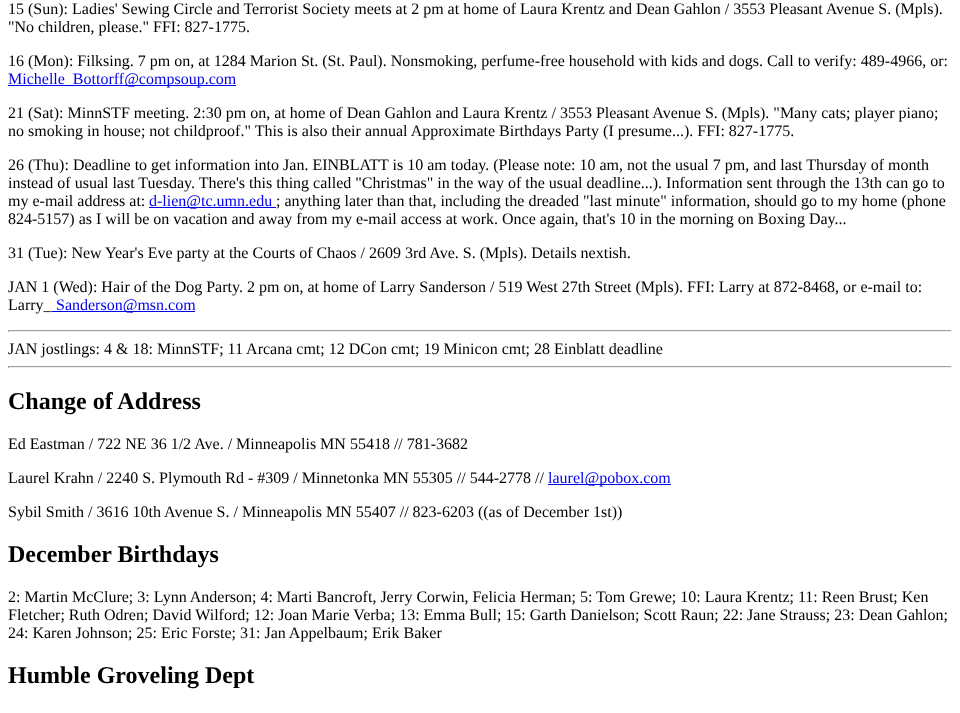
async function draw(canvas) {
  canvas.width = 960;
  canvas.height = 713;
  const ctx = canvas.getContext('2d');
  ctx.miterLimit = 4;
  ctx.fontKerning = 'normal';
  function label(s, x, y, font, color) {
    ctx.font = font;
    ctx.fillStyle = color;
    ctx.fillText(s, x, y);
  }
  function rect(x, y, w, h, color) {
    ctx.fillStyle = color;
    ctx.fillRect(x, y, w, h);
  }

  rect(0, 0, 960, 713, '#fff');
  label('15 (Sun): Ladies\' Sewing Circle and Terrorist Society meets at 2 pm at home of Laura Krentz and Dean Gahlon / 3553 Pleasant Avenue S. (Mpls).', 8, 14, '16px Liberation Serif', '#000');
  label('"No children, please." FFI: 827-1775.', 8, 32, '16px Liberation Serif', '#000');
  label('16 (Mon): Filksing. 7 pm on, at 1284 Marion St. (St. Paul). Nonsmoking, perfume-free household with kids and dogs. Call to verify: 489-4966, or:', 8, 66, '16px Liberation Serif', '#000');
  rect(8, 85, 228, 1, '#00e');
  label('Michelle_Bottorff@compsoup.com', 8, 84, '16px Liberation Serif', '#00e');
  label('21 (Sat): MinnSTF meeting. 2:30 pm on, at home of Dean Gahlon and Laura Krentz / 3553 Pleasant Avenue S. (Mpls). "Many cats; player piano;', 8, 118, '16px Liberation Serif', '#000');
  label('no smoking in house; not childproof." This is also their annual Approximate Birthdays Party (I presume...). FFI: 827-1775.', 8, 136, '16px Liberation Serif', '#000');
  label('26 (Thu): Deadline to get information into Jan. EINBLATT is 10 am today. (Please note: 10 am, not the usual 7 pm, and last Thursday of month', 8, 170, '16px Liberation Serif', '#000');
  label('instead of usual last Tuesday. There\'s this thing called "Christmas" in the way of the usual deadline...). Information sent through the 13th can go to', 8, 188, '16px Liberation Serif', '#000');
  label('my e-mail address at:', 8, 206, '16px Liberation Serif', '#000');
  rect(149, 207, 127, 1, '#00e');
  label('d-lien@tc.umn.edu', 149, 206, '16px Liberation Serif', '#00e');
  label('; anything later than that, including the dreaded "last minute" information, should go to my home (phone', 276, 206, '16px Liberation Serif', '#000');
  label('824-5157) as I will be on vacation and away from my e-mail access at work. Once again, that\'s 10 in the morning on Boxing Day...', 8, 224, '16px Liberation Serif', '#000');
  label('31 (Tue): New Year\'s Eve party at the Courts of Chaos / 2609 3rd Ave. S. (Mpls). Details nextish.', 8, 258, '16px Liberation Serif', '#000');
  label('JAN 1 (Wed): Hair of the Dog Party. 2 pm on, at home of Larry Sanderson / 519 West 27th Street (Mpls). FFI: Larry at 872-8468, or e-mail to:', 8, 292, '16px Liberation Serif', '#000');
  label('Larry_', 8, 310, '16px Liberation Serif', '#000');
  rect(52, 311, 143, 1, '#00e');
  label('Sanderson@msn.com', 56, 310, '16px Liberation Serif', '#00e');
  rect(8, 330, 944, 1, '#9f9f9f');
  rect(951, 330, 1, 2, '#eee');
  rect(8, 331, 944, 1, '#eee');
  rect(8, 330, 1, 2, '#9f9f9f');
  label('JAN jostlings: 4 & 18: MinnSTF; 11 Arcana cmt; 12 DCon cmt; 19 Minicon cmt; 28 Einblatt deadline', 8, 354, '16px Liberation Serif', '#000');
  rect(8, 366, 944, 1, '#9f9f9f');
  rect(951, 366, 1, 2, '#eee');
  rect(8, 367, 944, 1, '#eee');
  rect(8, 366, 1, 2, '#9f9f9f');
  label('Change of Address', 8, 409, 'bold 24px Liberation Serif', '#000');
  label('Ed Eastman / 722 NE 36 1/2 Ave. / Minneapolis MN 55418 // 781-3682', 8, 449, '16px Liberation Serif', '#000');
  label('Laurel Krahn / 2240 S. Plymouth Rd - #309 / Minnetonka MN 55305 // 544-2778 //', 8, 483, '16px Liberation Serif', '#000');
  rect(548, 484, 123, 1, '#00e');
  label('laurel@pobox.com', 548, 483, '16px Liberation Serif', '#00e');
  label('Sybil Smith / 3616 10th Avenue S. / Minneapolis MN 55407 // 823-6203 ((as of December 1st))', 8, 517, '16px Liberation Serif', '#000');
  label('December Birthdays', 8, 562, 'bold 24px Liberation Serif', '#000');
  label('2: Martin McClure; 3: Lynn Anderson; 4: Marti Bancroft, Jerry Corwin, Felicia Herman; 5: Tom Grewe; 10: Laura Krentz; 11: Reen Brust; Ken', 8, 602, '16px Liberation Serif', '#000');
  label('Fletcher; Ruth Odren; David Wilford; 12: Joan Marie Verba; 13: Emma Bull; 15: Garth Danielson; Scott Raun; 22: Jane Strauss; 23: Dean Gahlon;', 8, 620, '16px Liberation Serif', '#000');
  label('24: Karen Johnson; 25: Eric Forste; 31: Jan Appelbaum; Erik Baker', 8, 638, '16px Liberation Serif', '#000');
  label('Humble Groveling Dept', 8, 683, 'bold 24px Liberation Serif', '#000');
}

draw(document.querySelector('canvas'));
